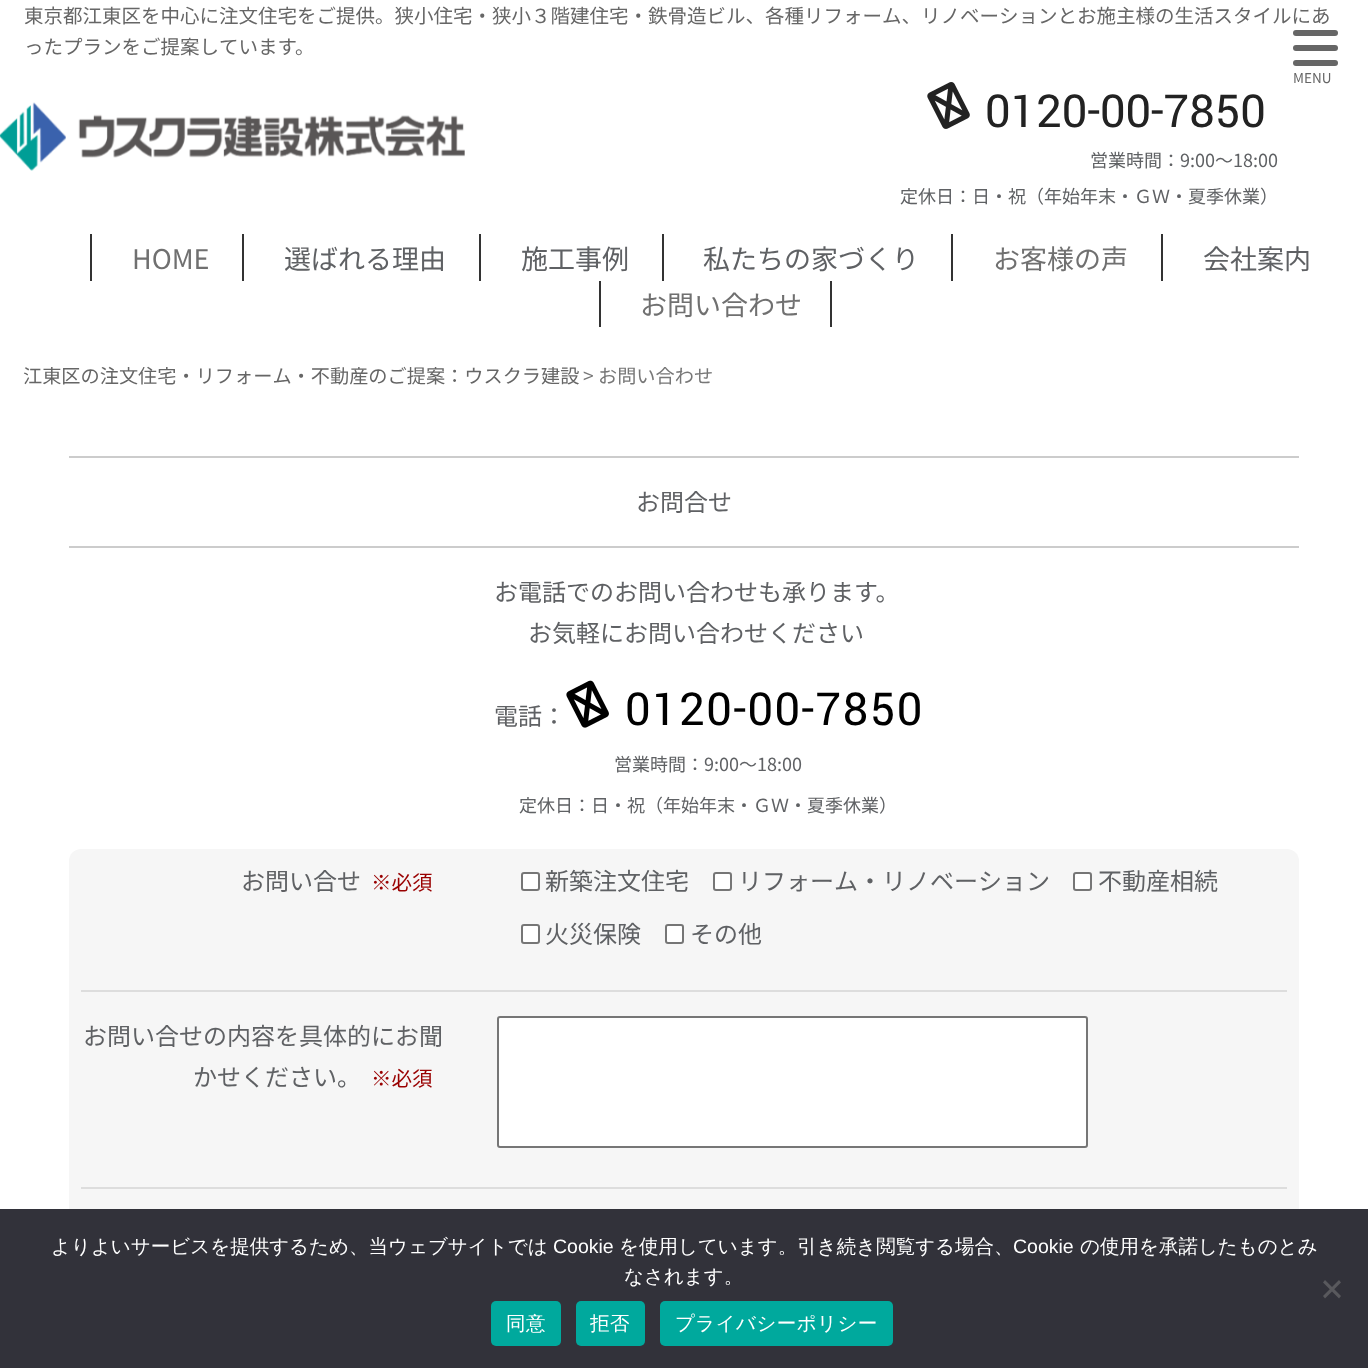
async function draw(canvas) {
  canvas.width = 1368;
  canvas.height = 1368;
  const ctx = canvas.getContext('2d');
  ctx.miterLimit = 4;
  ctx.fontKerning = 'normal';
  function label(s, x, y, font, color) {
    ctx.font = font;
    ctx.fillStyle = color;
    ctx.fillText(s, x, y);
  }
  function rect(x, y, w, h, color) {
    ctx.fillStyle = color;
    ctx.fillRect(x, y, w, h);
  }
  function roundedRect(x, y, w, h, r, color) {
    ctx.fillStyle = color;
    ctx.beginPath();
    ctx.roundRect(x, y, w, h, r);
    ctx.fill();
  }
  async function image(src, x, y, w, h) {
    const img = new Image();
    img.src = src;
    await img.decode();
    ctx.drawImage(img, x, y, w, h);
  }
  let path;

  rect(0, 0, 1368, 1368, '#fff');
  label('東京都江東区を中心に注文住宅をご提供。狭小住宅・狭小３階建住宅・鉄骨造ビル、各種リフォーム、リノベーションとお施主様の生活スタイルにあ', 24, 23, '19.5px Noto Sans JP', '#666');
  label('ったプランをご提案しています。', 24, 54, '19.5px Noto Sans JP', '#666');
  await image('assets/img1.png', 0, 102, 465, 69);
  await image('assets/img2.png', 927, 82, 43, 47);
  label('0120-00-7850', 985, 127, '50.5px Yantramanav', '#222');
  label('営業時間：9:00～18:00', 1090, 167, '18px Noto Sans JP', '#5f6164');
  label('定休日：日・祝（年始年末・ＧＷ・夏季休業）', 900, 203, '18px Noto Sans JP', '#5f6164');
  roundedRect(1293, 30, 45, 6, 3, '#666');
  roundedRect(1293, 45, 45, 6, 3, '#666');
  roundedRect(1293, 60, 45, 6, 3, '#666');
  label('MENU', 1293, 83, '13.5px Noto Sans JP', '#666');
  rect(90, 234, 2, 47, '#333');
  label('HOME', 132, 269, '27px Noto Sans JP', '#707070');
  rect(242, 234, 2, 47, '#333');
  label('選ばれる理由', 284, 269, '27px Noto Sans JP', '#5f6164');
  rect(479, 234, 2, 47, '#333');
  label('施工事例', 521, 269, '27px Noto Sans JP', '#5f6164');
  rect(662, 234, 2, 47, '#333');
  label('私たちの家づくり', 703, 269, '27px Noto Sans JP', '#5f6164');
  rect(951, 234, 2, 47, '#333');
  label('お客様の声', 993, 269, '27px Noto Sans JP', '#707070');
  rect(1161, 234, 2, 47, '#333');
  label('会社案内', 1203, 269, '27px Noto Sans JP', '#5f6164');
  rect(830, 281, 2, 46, '#333');
  rect(599, 281, 2, 46, '#333');
  label('お問い合わせ', 640, 315, '27px Noto Sans JP', '#707070');
  label('江東区の注文住宅・リフォーム・不動産のご提案：ウスクラ建設', 23, 383, '19.2px Noto Sans JP', '#666');
  label('> お問い合わせ', 583, 383, '19.2px Noto Sans JP', '#777');
  rect(69, 456, 1230, 2, '#ccc');
  rect(69, 546, 1230, 2, '#ccc');
  label('お問合せ', 636, 511, '24px Noto Sans JP', '#5f6164');
  label('お電話でのお問い合わせも承ります。', 494, 601, '24px Noto Sans JP', '#5f6164');
  label('お気軽にお問い合わせください', 528, 642, '24px Noto Sans JP', '#5f6164');
  label('電話：', 494, 725, '24px Noto Sans JP', '#5f6164');
  await image('assets/img3.png', 566, 680, 43, 48);
  ctx.letterSpacing = '1.5px';
  label('0120-00-7850', 625, 725, '50.5px Yantramanav', '#000');
  ctx.letterSpacing = '0px';
  label('営業時間：9:00～18:00', 614, 771, '18px Noto Sans JP', '#5f6164');
  label('定休日：日・祝（年始年末・ＧＷ・夏季休業）', 519, 812, '18px Noto Sans JP', '#5f6164');
  roundedRect(69, 849, 1230, 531, 12, '#f6f6f6');
  rect(81, 990, 1206, 2, '#ddd');
  label('お問い合せ', 241, 890, '24px Noto Sans JP', '#5f6164');
  label('※必須', 371, 890, '20.5px Noto Sans JP', '#900');
  ctx.fillStyle = '#fff';
  ctx.beginPath();
  ctx.roundRect(522, 873, 17, 17, 2);
  ctx.fill();
  ctx.strokeStyle = '#767676';
  ctx.lineWidth = 2;
  ctx.stroke();
  label('新築注文住宅', 545, 890, '24px Noto Sans JP', '#5f6164');
  ctx.fillStyle = '#fff';
  ctx.beginPath();
  ctx.roundRect(714, 873, 17, 17, 2);
  ctx.fill();
  ctx.stroke();
  label('リフォーム・リノベーション', 738, 890, '24px Noto Sans JP', '#5f6164');
  ctx.fillStyle = '#fff';
  ctx.beginPath();
  ctx.roundRect(1074, 873, 17, 17, 2);
  ctx.fill();
  ctx.stroke();
  label('不動産相続', 1098, 890, '24px Noto Sans JP', '#5f6164');
  ctx.fillStyle = '#fff';
  ctx.beginPath();
  ctx.roundRect(522, 925, 17, 18, 2);
  ctx.fill();
  ctx.stroke();
  label('火災保険', 545, 943, '24px Noto Sans JP', '#5f6164');
  ctx.fillStyle = '#fff';
  ctx.beginPath();
  ctx.roundRect(666, 925, 17, 18, 2);
  ctx.fill();
  ctx.stroke();
  label('その他', 690, 943, '24px Noto Sans JP', '#5f6164');
  rect(81, 1187, 1206, 2, '#ddd');
  label('お問い合せの内容を具体的にお聞', 83, 1045, '24px Noto Sans JP', '#5f6164');
  label('かせください。', 193, 1086, '24px Noto Sans JP', '#5f6164');
  label('※必須', 371, 1086, '20.5px Noto Sans JP', '#900');
  ctx.fillStyle = '#fff';
  ctx.beginPath();
  ctx.roundRect(498, 1017, 589, 130, 2);
  ctx.fill();
  ctx.stroke();
  rect(0, 1209, 1368, 159, '#32323a');
  label('よりよいサービスを提供するため、当ウェブサイトでは', 51, 1253, '500 19.5px WenQuanYi Zen Hei', '#fff');
  label('Cookie', 553, 1253, '19.5px Liberation Sans', '#fff');
  label('を使用しています。引き続き閲覧する場合、', 619, 1253, '500 19.5px WenQuanYi Zen Hei', '#fff');
  label('Cookie', 1013, 1253, '19.5px Liberation Sans', '#fff');
  label('の使用を承諾したものとみ', 1080, 1253, '500 19.5px WenQuanYi Zen Hei', '#fff');
  label('なされます。', 624, 1283, '500 19.5px WenQuanYi Zen Hei', '#fff');
  ctx.fillStyle = '#59595d';
  path = new Path2D('M1339 1280L1341 1282.5L1325 1298.5L1323 1296Z');
  ctx.fill(path);
  path = new Path2D('M1323 1282.5L1325 1280L1341 1296L1339 1298.5Z');
  ctx.fill(path);
  roundedRect(491, 1301, 70, 45, 5, '#00a99d');
  ctx.letterSpacing = '0.4px';
  label('同意', 506, 1330, '500 19.5px WenQuanYi Zen Hei', '#fff');
  roundedRect(576, 1301, 69, 45, 5, '#00a99d');
  label('拒否', 590, 1330, '500 19.5px WenQuanYi Zen Hei', '#fff');
  roundedRect(660, 1301, 233, 45, 5, '#00a99d');
  label('プライバシーポリシー', 675, 1330, '500 19.5px WenQuanYi Zen Hei', '#fff');
}

draw(document.querySelector('canvas'));
